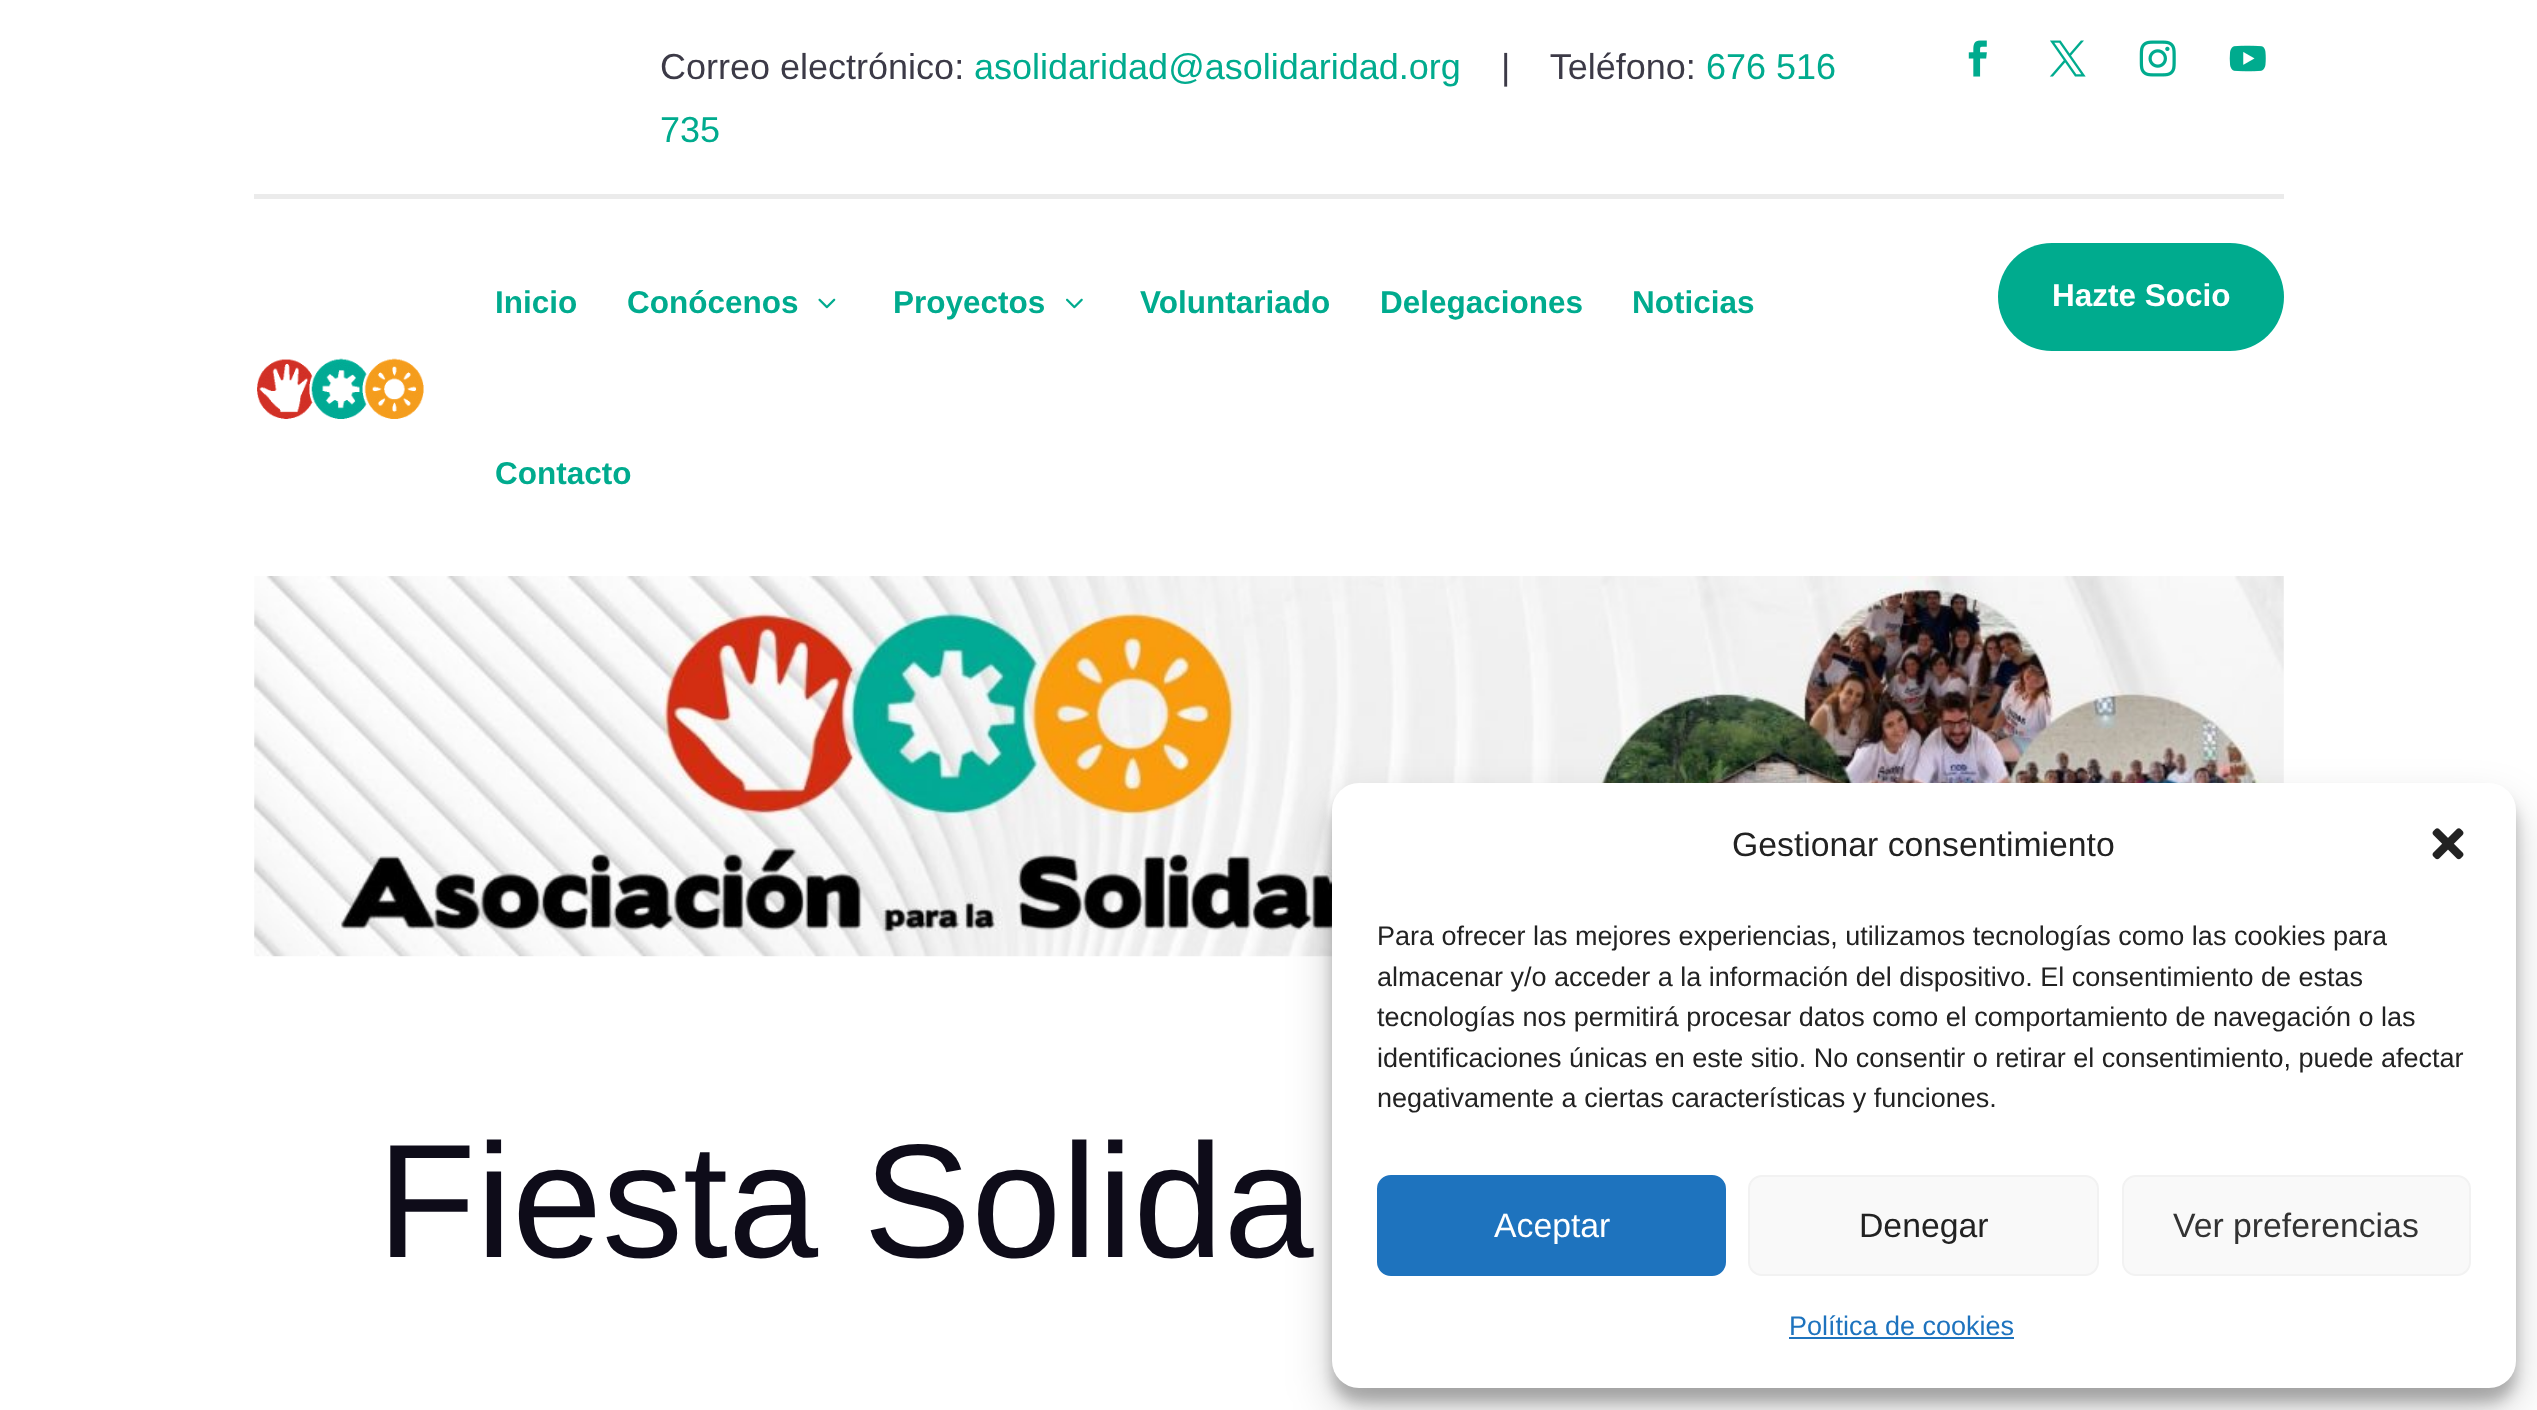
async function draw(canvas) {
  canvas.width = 2537;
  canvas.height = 1410;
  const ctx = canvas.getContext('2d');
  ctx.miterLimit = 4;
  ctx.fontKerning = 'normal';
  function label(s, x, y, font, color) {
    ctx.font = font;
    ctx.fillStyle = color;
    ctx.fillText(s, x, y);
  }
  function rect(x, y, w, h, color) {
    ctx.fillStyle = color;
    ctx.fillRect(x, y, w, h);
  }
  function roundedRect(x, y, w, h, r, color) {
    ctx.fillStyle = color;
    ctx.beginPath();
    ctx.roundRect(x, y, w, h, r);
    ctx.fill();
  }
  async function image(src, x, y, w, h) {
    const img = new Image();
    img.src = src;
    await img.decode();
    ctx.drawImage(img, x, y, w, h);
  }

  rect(0, 0, 2537, 1410, '#fff');
  rect(254, 194, 2030, 5, '#ebebeb');
  label('Correo electrónico:', 660, 79, '36px Liberation Sans', '#3c3a47');
  label('asolidaridad@asolidaridad.org', 974, 79, '36px Liberation Sans', '#00ab8e');
  label('|    Teléfono:', 1501, 79, '36px Liberation Sans', '#3c3a47');
  label('676 516', 1706, 79, '36px Liberation Sans', '#00ab8e');
  label('735', 660, 142, '36px Liberation Sans', '#00ab8e');
  await image('assets/img1.png', 1968, 40, 19, 37);
  await image('assets/img2.png', 2049, 40, 37, 37);
  await image('assets/img3.png', 2139, 40, 37, 37);
  await image('assets/img4.png', 2229, 45, 37, 27);
  await image('assets/img5.png', 257, 358, 167, 61);
  label('Inicio', 495, 313, 'bold 31.5px Liberation Sans', '#00ab8e');
  label('Conócenos', 627, 313, 'bold 31.5px Liberation Sans', '#00ab8e');
  await image('assets/img6.png', 818, 298, 18, 11);
  label('Proyectos', 893, 313, 'bold 31.5px Liberation Sans', '#00ab8e');
  await image('assets/img7.png', 1066, 298, 17, 11);
  label('Voluntariado', 1140, 313, 'bold 31.5px Liberation Sans', '#00ab8e');
  label('Delegaciones', 1380, 313, 'bold 31.5px Liberation Sans', '#00ab8e');
  label('Noticias', 1632, 313, 'bold 31.5px Liberation Sans', '#00ab8e');
  label('Contacto', 495, 484, 'bold 31.5px Liberation Sans', '#00ab8e');
  roundedRect(1998, 243, 286, 108, 54, '#00ab8e');
  label('Hazte Socio', 2052, 306, 'bold 31.5px Liberation Sans', '#fff');
  await image('assets/img8.png', 254, 576, 2030, 381);
  label('Fiesta Solida', 377, 1257, '162px Liberation Sans', '#0e0c19');
  ctx.fillStyle = '#0000003b';
  ctx.filter = 'blur(7px)';
  ctx.beginPath();
  ctx.roundRect(1332, 797, 1184, 605, 27);
  ctx.fill();
  ctx.filter = 'none';
  ctx.fillStyle = '#00000030';
  ctx.filter = 'blur(22.5px)';
  ctx.beginPath();
  ctx.roundRect(1332, 806, 1184, 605, 27);
  ctx.fill();
  ctx.filter = 'none';
  roundedRect(1332, 783, 1184, 605, 27, '#fff');
  label('Gestionar consentimiento', 1732, 856, '33.75px Liberation Sans', '#222');
  await image('assets/img9.png', 2432, 828, 32, 32);
  label('Para ofrecer las mejores experiencias, utilizamos tecnologías como las cookies para', 1377, 945, '27px Liberation Sans', '#222');
  label('almacenar y/o acceder a la información del dispositivo. El consentimiento de estas', 1377, 986, '27px Liberation Sans', '#222');
  label('tecnologías nos permitirá procesar datos como el comportamiento de navegación o las', 1377, 1026, '27px Liberation Sans', '#222');
  label('identificaciones únicas en este sitio. No consentir o retirar el consentimiento, puede afectar', 1377, 1067, '27px Liberation Sans', '#222');
  label('negativamente a ciertas características y funciones.', 1377, 1107, '27px Liberation Sans', '#222');
  ctx.fillStyle = '#1e73be';
  ctx.beginPath();
  ctx.roundRect(1378, 1176, 347, 99, 13);
  ctx.fill();
  ctx.strokeStyle = '#1e73be';
  ctx.lineWidth = 2;
  ctx.stroke();
  label('Aceptar', 1494, 1237, '33.75px Liberation Sans', '#fff');
  ctx.fillStyle = '#f9f9f9';
  ctx.beginPath();
  ctx.roundRect(1749, 1176, 349, 99, 13);
  ctx.fill();
  ctx.strokeStyle = '#f2f2f2';
  ctx.stroke();
  label('Denegar', 1859, 1237, '33.75px Liberation Sans', '#222');
  ctx.fillStyle = '#f9f9f9';
  ctx.beginPath();
  ctx.roundRect(2123, 1176, 347, 99, 13);
  ctx.fill();
  ctx.stroke();
  label('Ver preferencias', 2173, 1237, '33.75px Liberation Sans', '#333');
  label('Política de cookies', 1789, 1335, '27px Liberation Sans', '#1e73be');
  rect(1789, 1337, 225, 2, '#1e73be');
}

draw(document.querySelector('canvas'));
